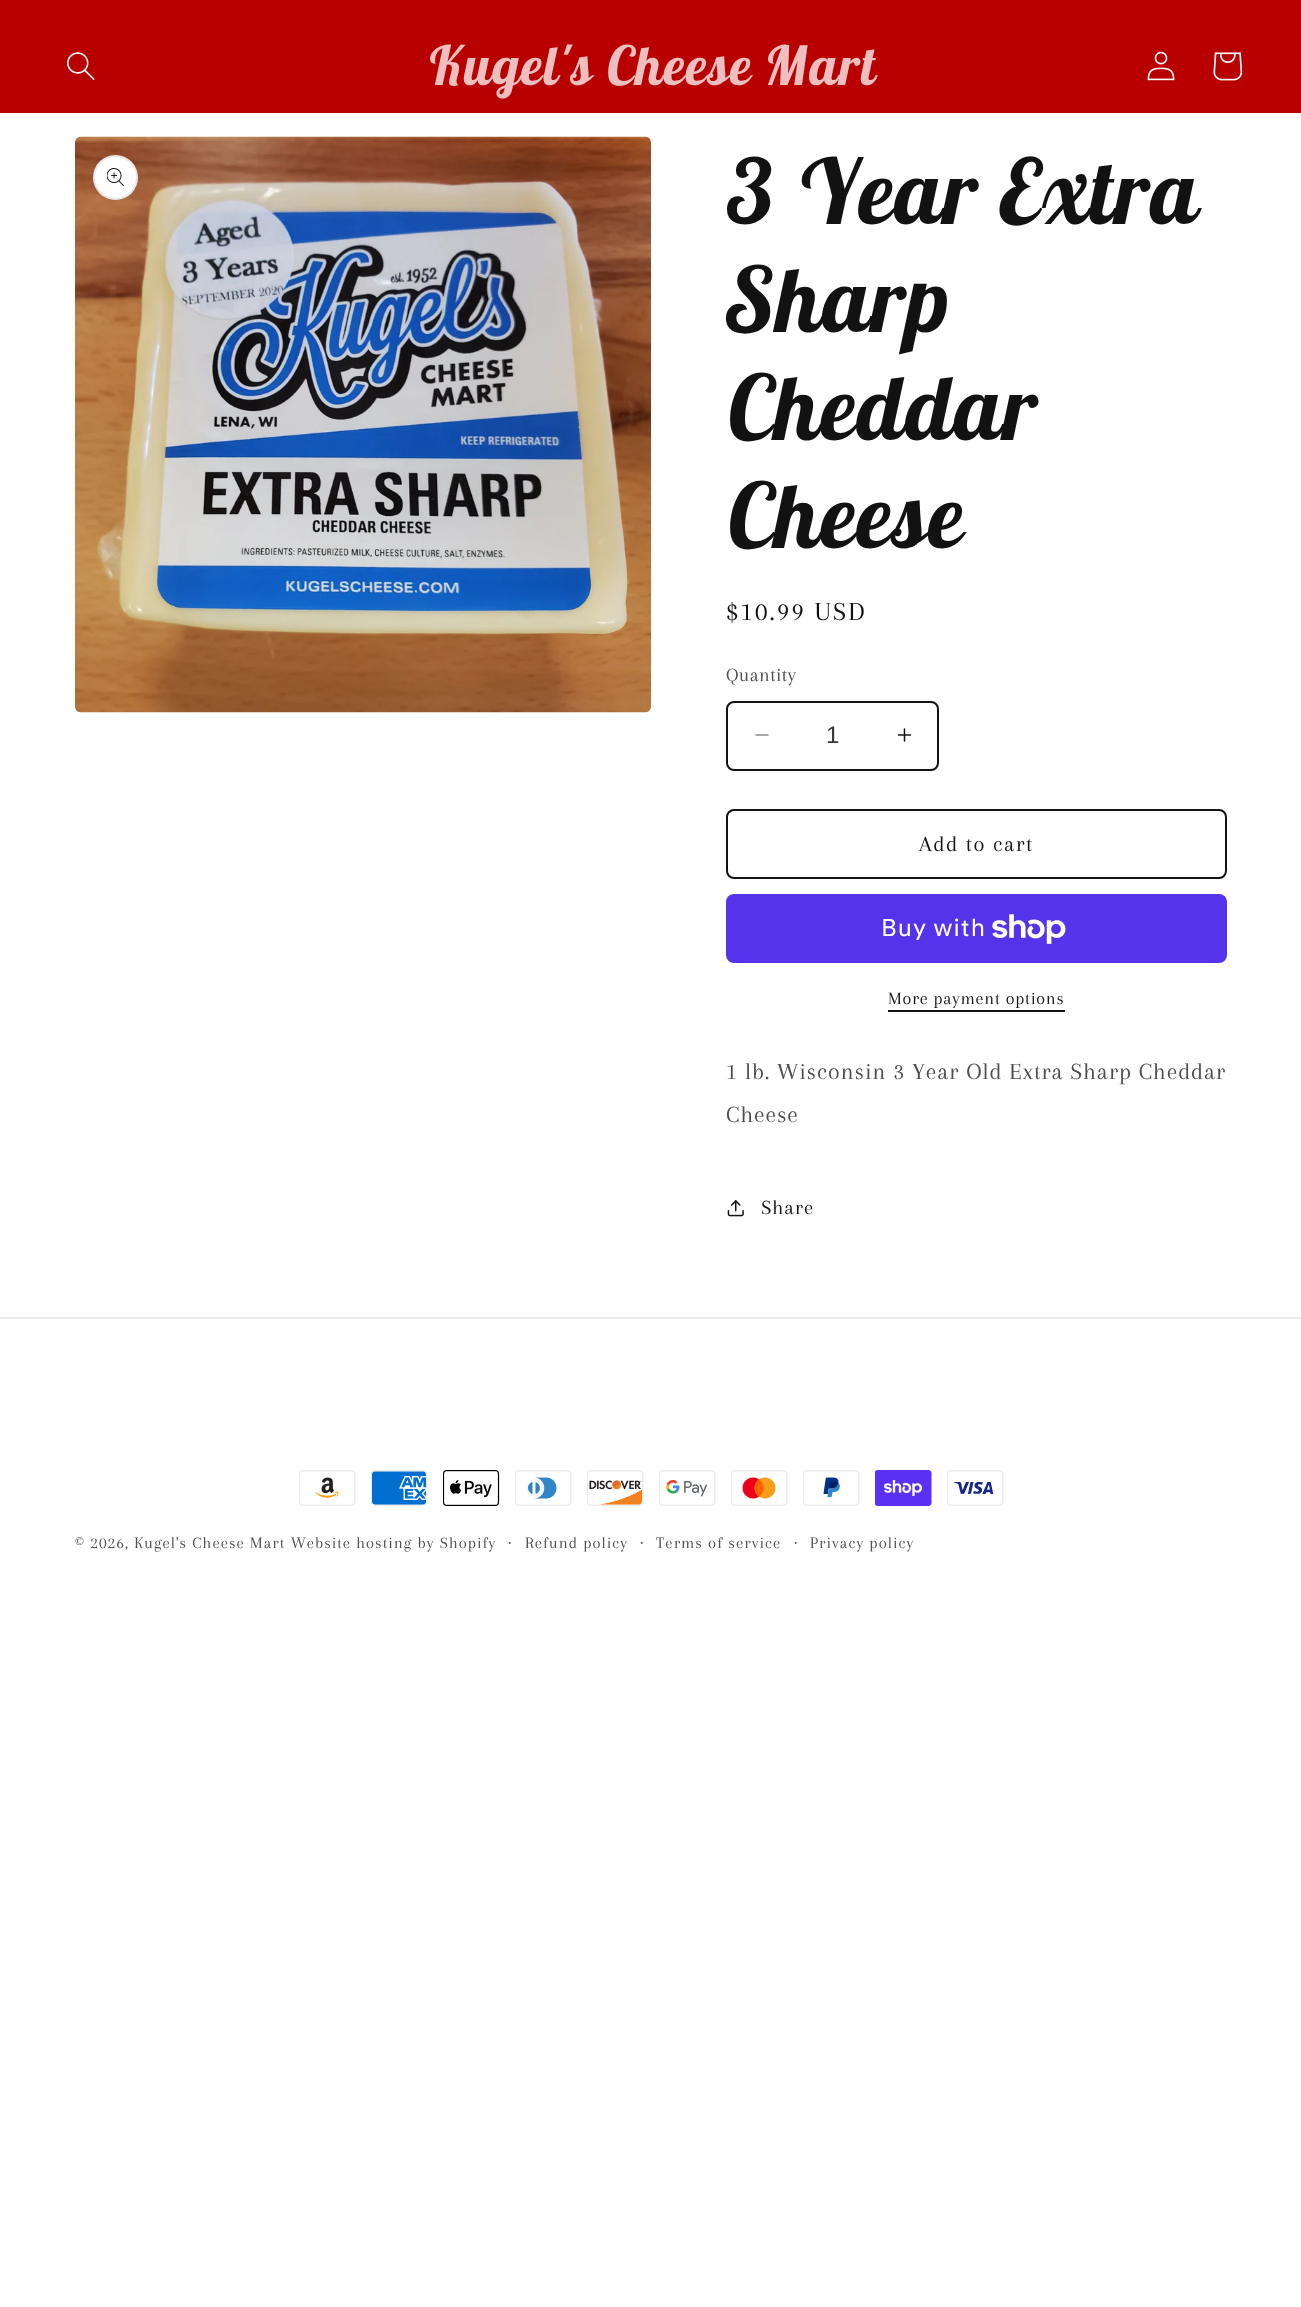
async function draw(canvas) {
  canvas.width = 1301;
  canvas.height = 2307;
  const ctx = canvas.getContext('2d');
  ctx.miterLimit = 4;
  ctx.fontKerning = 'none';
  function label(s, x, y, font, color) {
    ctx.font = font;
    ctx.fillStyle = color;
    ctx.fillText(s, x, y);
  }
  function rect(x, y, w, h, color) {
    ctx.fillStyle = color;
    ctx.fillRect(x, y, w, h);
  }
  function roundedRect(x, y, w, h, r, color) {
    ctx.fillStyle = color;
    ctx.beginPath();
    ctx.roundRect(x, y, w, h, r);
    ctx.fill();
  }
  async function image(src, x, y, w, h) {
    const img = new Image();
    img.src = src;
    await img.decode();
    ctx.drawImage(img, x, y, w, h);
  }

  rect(0, 0, 1301, 2307, '#fff');
  rect(0, 0, 1301, 113, '#b90000');
  await image('assets/img1.png', 67, 52, 28, 28);
  ctx.letterSpacing = '1.4px';
  label('Kugel\'s Cheese Mart', 427, 85, 'italic bold 54px Lobster Two', '#eebfbf');
  await image('assets/img2.png', 1147, 51, 28, 30);
  await image('assets/img3.png', 1213, 52, 30, 29);
  await image('assets/img4.png', 75, 136, 576, 577);
  ctx.fillStyle = '#fff';
  ctx.beginPath();
  ctx.arc(115.5, 177.5, 22.5, 0, 2 * Math.PI);
  ctx.fill();
  ctx.beginPath();
  ctx.arc(115.5, 177.5, 21.5, 0, 2 * Math.PI);
  ctx.strokeStyle = '#1212121a';
  ctx.lineWidth = 2;
  ctx.stroke();
  await image('assets/img5.png', 107, 168, 17, 18);
  label('3 Year Extra', 726, 224, 'italic bold 90px Lobster Two', '#121212');
  label('Sharp', 726, 332, 'italic bold 90px Lobster Two', '#121212');
  label('Cheddar', 726, 440, 'italic bold 90px Lobster Two', '#121212');
  label('Cheese', 726, 548, 'italic bold 90px Lobster Two', '#121212');
  ctx.letterSpacing = '2px';
  label('$10.99 USD', 726, 620, '27px Arapey', '#121212');
  ctx.letterSpacing = '0.5px';
  label('Quantity', 726, 681, '19.5px Arapey', '#4d4d4d');
  await image('assets/img6.png', 755, 734, 14, 2);
  await image('assets/img7.png', 897, 728, 15, 14);
  ctx.beginPath();
  ctx.roundRect(727, 702, 211, 68, 7);
  ctx.strokeStyle = '#121212';
  ctx.stroke();
  ctx.letterSpacing = '0px';
  label('1', 826, 743, '24px Liberation Sans', '#363636');
  ctx.beginPath();
  ctx.roundRect(727, 810, 499, 68, 7);
  ctx.stroke();
  ctx.letterSpacing = '1.5px';
  label('Add to cart', 919, 851, '22.5px Arapey', '#121212');
  roundedRect(726, 894, 501, 69, 8, '#5433eb');
  ctx.letterSpacing = '0.9px';
  label('Buy with', 881, 936, '24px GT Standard', '#fff');
  await image('assets/img8.png', 992, 914, 74, 30);
  ctx.letterSpacing = '0.75px';
  label('More payment options', 888, 1004, '18px Arapey', '#121212');
  rect(888, 1010, 177, 2, '#121212');
  ctx.letterSpacing = '0.9px';
  label('1 lb. Wisconsin 3 Year Old Extra Sharp Cheddar', 726, 1079, '24px Arapey', '#4d4d4d');
  label('Cheese', 726, 1122, '24px Arapey', '#4d4d4d');
  await image('assets/img9.png', 727, 1200, 17, 17);
  label('Share', 761, 1214, '21px Arapey', '#121212');
  rect(0, 1317, 1301, 2, '#ececec');
  await image('assets/img10.png', 299, 1470, 57, 36);
  await image('assets/img11.png', 371, 1470, 57, 36);
  await image('assets/img12.png', 443, 1470, 57, 36);
  await image('assets/img13.png', 515, 1470, 57, 36);
  await image('assets/img14.png', 587, 1470, 57, 36);
  await image('assets/img15.png', 659, 1470, 57, 36);
  await image('assets/img16.png', 731, 1470, 57, 36);
  await image('assets/img17.png', 803, 1470, 57, 36);
  await image('assets/img18.png', 875, 1470, 57, 36);
  await image('assets/img19.png', 947, 1470, 57, 36);
  ctx.letterSpacing = '1.05px';
  label('© 2026, Kugel\'s Cheese Mart', 75, 1548, '16.5px Arapey', '#4d4d4d');
  label('Website hosting by Shopify', 291, 1548, '16.5px Arapey', '#4d4d4d');
  label('·', 508, 1548, '18px Arapey', '#4d4d4d');
  label('Refund policy', 525, 1548, '16.5px Arapey', '#4d4d4d');
  label('·', 640, 1548, '18px Arapey', '#4d4d4d');
  label('Terms of service', 656, 1548, '16.5px Arapey', '#4d4d4d');
  label('·', 794, 1548, '18px Arapey', '#4d4d4d');
  label('Privacy policy', 810, 1548, '16.5px Arapey', '#4d4d4d');
}

draw(document.querySelector('canvas'));
